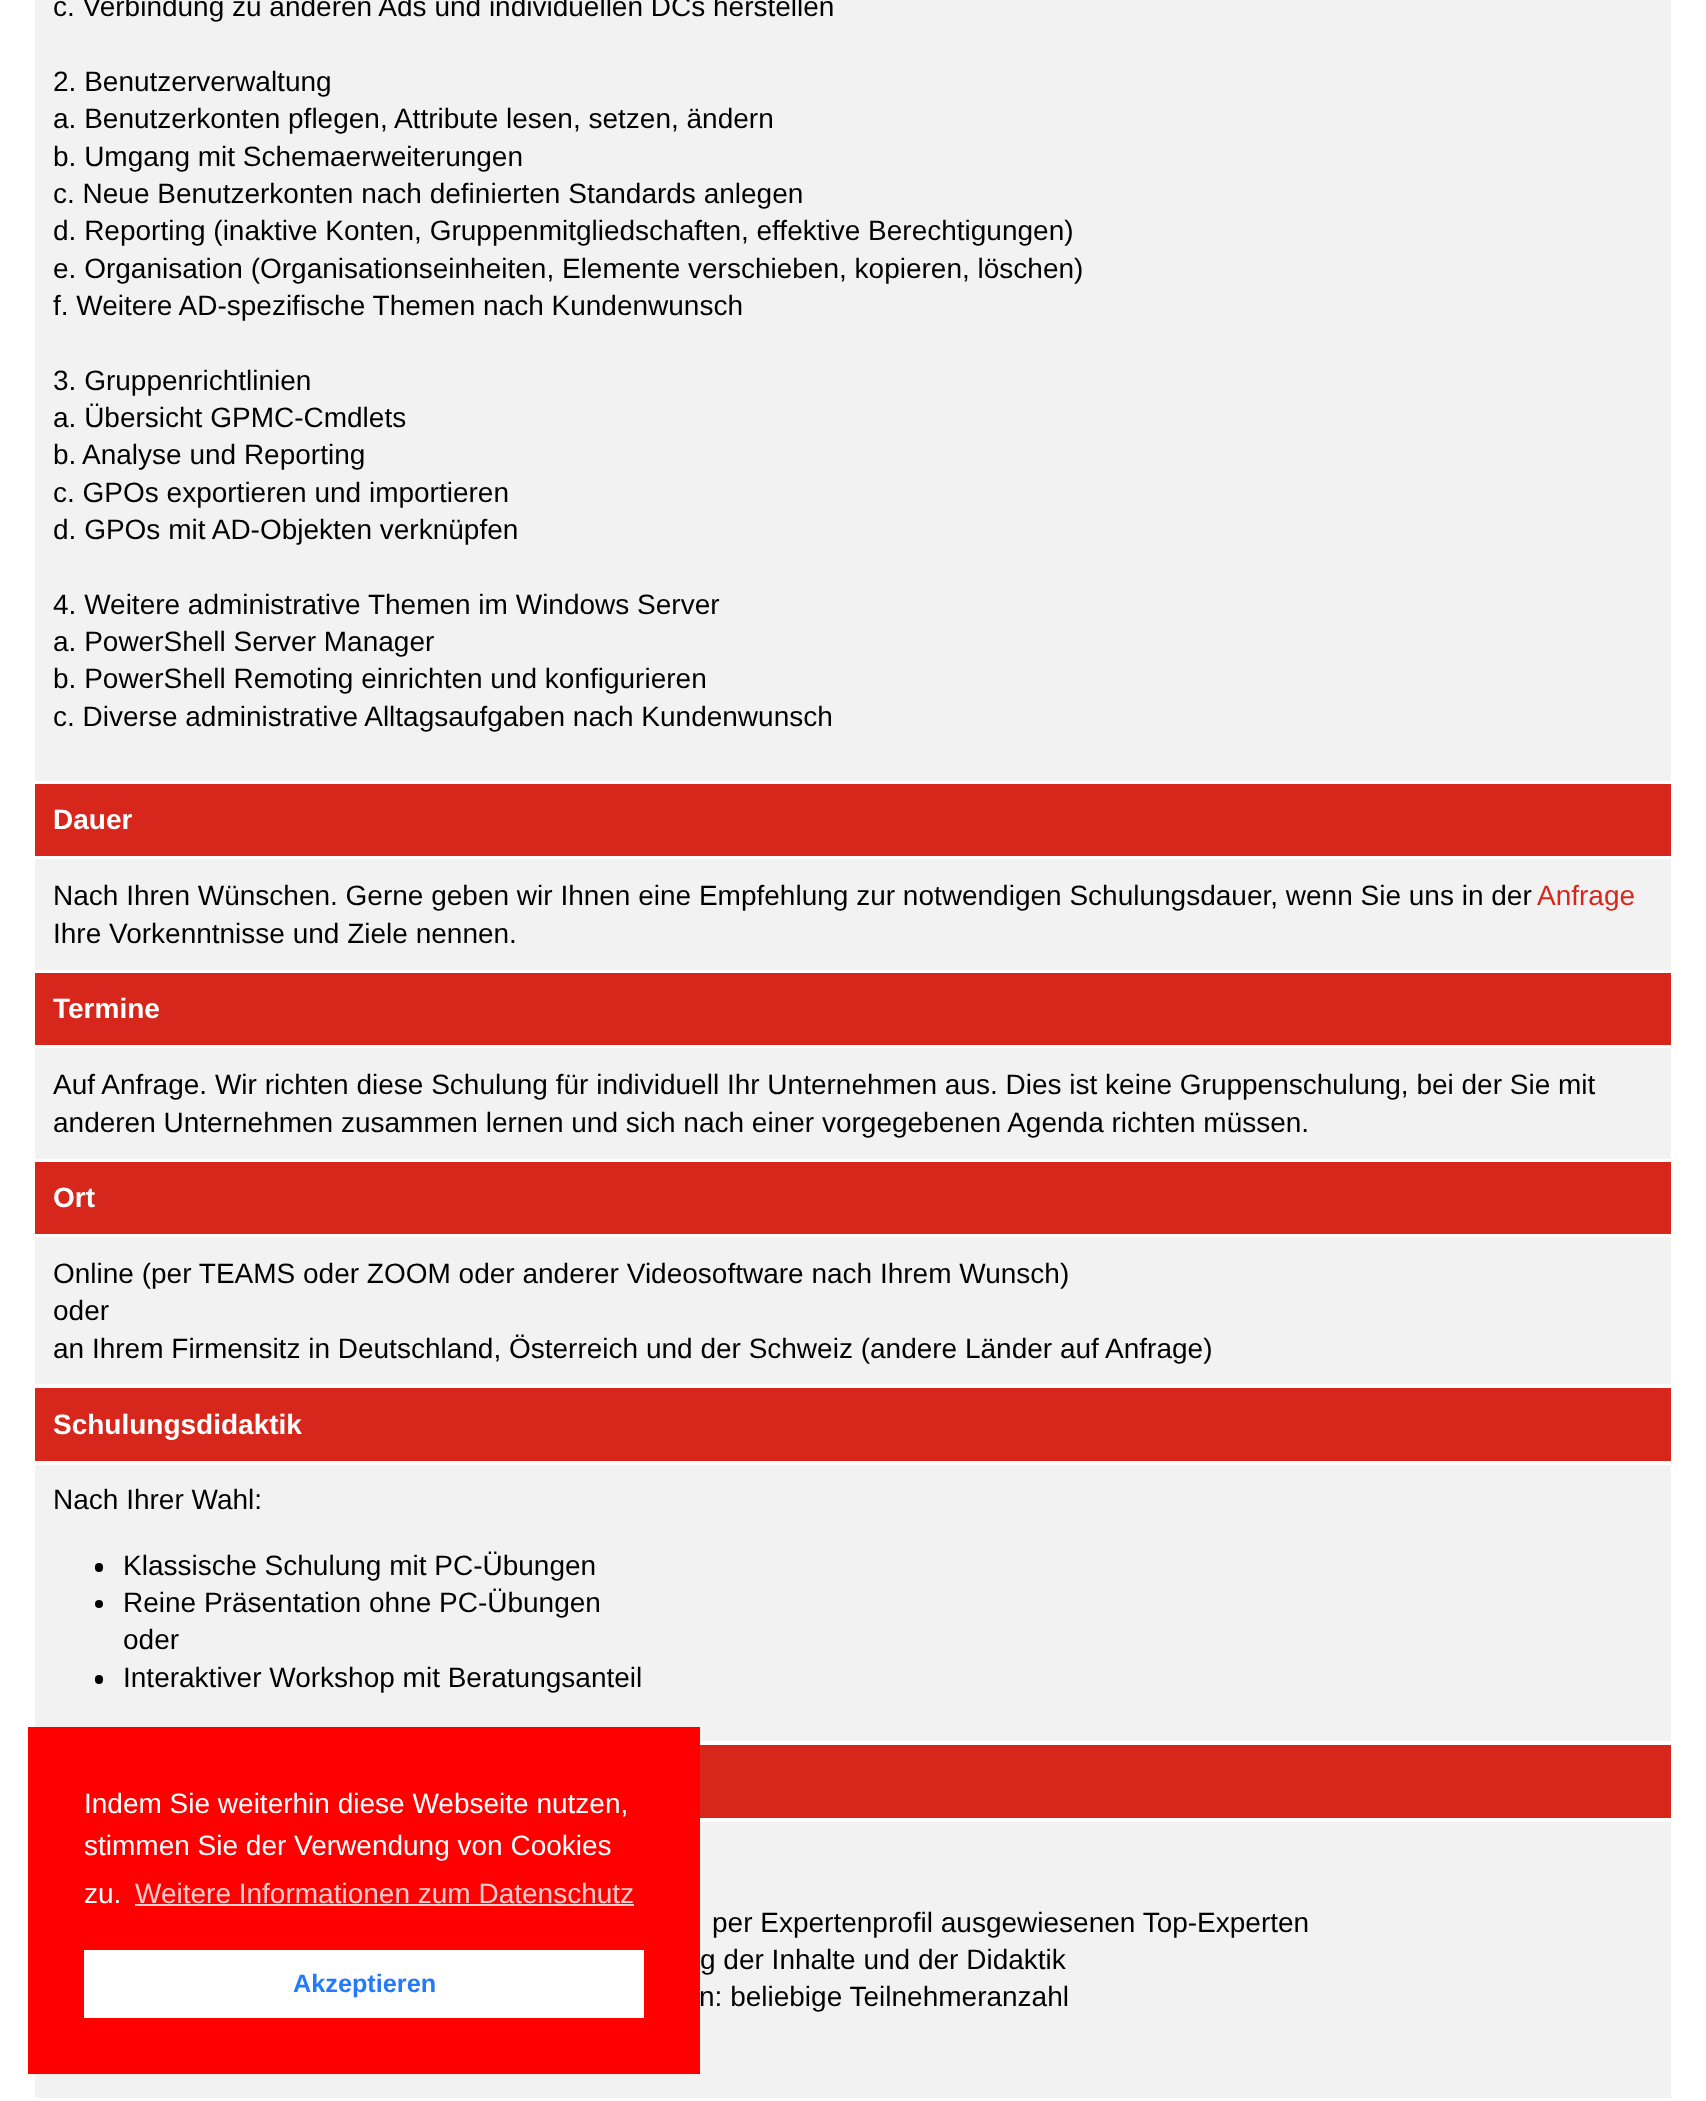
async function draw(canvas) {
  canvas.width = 1706;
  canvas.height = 2101;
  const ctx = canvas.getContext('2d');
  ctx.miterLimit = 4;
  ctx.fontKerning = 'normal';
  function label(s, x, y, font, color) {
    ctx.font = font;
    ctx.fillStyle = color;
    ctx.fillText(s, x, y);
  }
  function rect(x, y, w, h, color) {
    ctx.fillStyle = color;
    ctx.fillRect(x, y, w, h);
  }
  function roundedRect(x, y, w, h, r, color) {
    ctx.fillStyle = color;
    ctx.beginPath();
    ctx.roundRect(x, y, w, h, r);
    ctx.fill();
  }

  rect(0, 0, 1706, 2101, '#fff');
  rect(35, 0, 1636, 781, '#f2f2f2');
  label('c. Verbindung zu anderen Ads und individuellen DCs herstellen', 53, 16, '28px Liberation Sans', '#000');
  label('2. Benutzerverwaltung', 53, 91, '28px Liberation Sans', '#000');
  label('a. Benutzerkonten pflegen, Attribute lesen, setzen, ändern', 53, 128, '28px Liberation Sans', '#000');
  label('b. Umgang mit Schemaerweiterungen', 53, 166, '28px Liberation Sans', '#000');
  label('c. Neue Benutzerkonten nach definierten Standards anlegen', 53, 203, '28px Liberation Sans', '#000');
  label('d. Reporting (inaktive Konten, Gruppenmitgliedschaften, effektive Berechtigungen)', 53, 240, '28px Liberation Sans', '#000');
  label('e. Organisation (Organisationseinheiten, Elemente verschieben, kopieren, löschen)', 53, 278, '28px Liberation Sans', '#000');
  label('f. Weitere AD-spezifische Themen nach Kundenwunsch', 53, 315, '28px Liberation Sans', '#000');
  label('3. Gruppenrichtlinien', 53, 390, '28px Liberation Sans', '#000');
  label('a. Übersicht GPMC-Cmdlets', 53, 427, '28px Liberation Sans', '#000');
  label('b.', 53, 464, '28px Liberation Sans', '#000');
  label('Analyse und Reporting', 82, 464, '28px Liberation Sans', '#000');
  label('c. GPOs exportieren und importieren', 53, 502, '28px Liberation Sans', '#000');
  label('d. GPOs mit AD-Objekten verknüpfen', 53, 539, '28px Liberation Sans', '#000');
  label('4. Weitere administrative Themen im Windows Server', 53, 614, '28px Liberation Sans', '#000');
  label('a. PowerShell Server Manager', 53, 651, '28px Liberation Sans', '#000');
  label('b. PowerShell Remoting einrichten und konfigurieren', 53, 688, '28px Liberation Sans', '#000');
  label('c. Diverse administrative Alltagsaufgaben nach Kundenwunsch', 53, 726, '28px Liberation Sans', '#000');
  rect(35, 784, 1636, 72, '#d7271c');
  label('Dauer', 53, 829, 'bold 28px Liberation Sans', '#fff');
  rect(35, 859, 1636, 111, '#f2f2f2');
  label('Nach Ihren Wünschen. Gerne geben wir Ihnen eine Empfehlung zur notwendigen Schulungsdauer, wenn Sie uns in der', 53, 905, '28px Liberation Sans', '#000');
  label('Anfrage', 1537, 905, '28px Liberation Sans', '#d7271c');
  label('Ihre Vorkenntnisse und Ziele nennen.', 53, 943, '28px Liberation Sans', '#000');
  rect(35, 973, 1636, 72, '#d7271c');
  label('Termine', 53, 1018, 'bold 28px Liberation Sans', '#fff');
  rect(35, 1048, 1636, 111, '#f2f2f2');
  label('Auf Anfrage. Wir richten diese Schulung für individuell Ihr Unternehmen aus. Dies ist keine Gruppenschulung, bei der Sie mit', 53, 1094, '28px Liberation Sans', '#000');
  label('anderen Unternehmen zusammen lernen und sich nach einer vorgegebenen Agenda richten müssen.', 53, 1132, '28px Liberation Sans', '#000');
  rect(35, 1162, 1636, 72, '#d7271c');
  label('Ort', 53, 1207, 'bold 28px Liberation Sans', '#fff');
  rect(35, 1237, 1636, 147, '#f2f2f2');
  label('Online (per TEAMS oder ZOOM oder anderer Videosoftware nach Ihrem Wunsch)', 53, 1283, '28px Liberation Sans', '#000');
  label('oder', 53, 1320, '28px Liberation Sans', '#000');
  label('an Ihrem Firmensitz in Deutschland, Österreich und der Schweiz (andere Länder auf Anfrage)', 53, 1358, '28px Liberation Sans', '#000');
  rect(35, 1388, 1636, 73, '#d7271c');
  label('Schulungsdidaktik', 53, 1434, 'bold 28px Liberation Sans', '#fff');
  rect(35, 1465, 1636, 276, '#f2f2f2');
  label('Nach Ihrer Wahl:', 53, 1509, '28px Liberation Sans', '#000');
  roundedRect(95, 1563, 8, 9, 4, '#000');
  label('Klassische Schulung mit PC-Übungen', 123, 1575, '28px Liberation Sans', '#000');
  ctx.beginPath();
  ctx.arc(99, 1604, 4, 0, 2 * Math.PI);
  ctx.fill();
  label('Reine Präsentation ohne PC-Übungen', 123, 1612, '28px Liberation Sans', '#000');
  label('oder', 123, 1649, '28px Liberation Sans', '#000');
  roundedRect(95, 1675, 8, 9, 4, '#000');
  label('Interaktiver Workshop mit Beratungsanteil', 123, 1687, '28px Liberation Sans', '#000');
  rect(700, 1745, 971, 73, '#d7271c');
  rect(35, 1822, 1636, 276, '#f2f2f2');
  label('per Expertenprofil ausgewiesenen Top-Experten', 712, 1932, '28px Liberation Sans', '#000');
  label('g der Inhalte und der Didaktik', 700, 1969, '28px Liberation Sans', '#000');
  label('n: beliebige Teilnehmeranzahl', 699, 2006, '28px Liberation Sans', '#000');
  rect(28, 1727, 672, 347, '#f00');
  label('Indem Sie weiterhin diese Webseite nutzen,', 84, 1813, '28px Liberation Sans', '#fff');
  label('stimmen Sie der Verwendung von Cookies', 84, 1855, '28px Liberation Sans', '#fff');
  label('zu.', 84, 1903, '28px Liberation Sans', '#fff');
  label('Weitere Informationen zum Datenschutz', 135, 1903, '28px Liberation Sans', '#fcc');
  rect(135, 1904, 499, 2, '#fcc');
  rect(84, 1950, 560, 68, '#fff');
  label('Akzeptieren', 293, 1992, 'bold 25.25px Liberation Sans', '#237afc');
}

draw(document.querySelector('canvas'));
